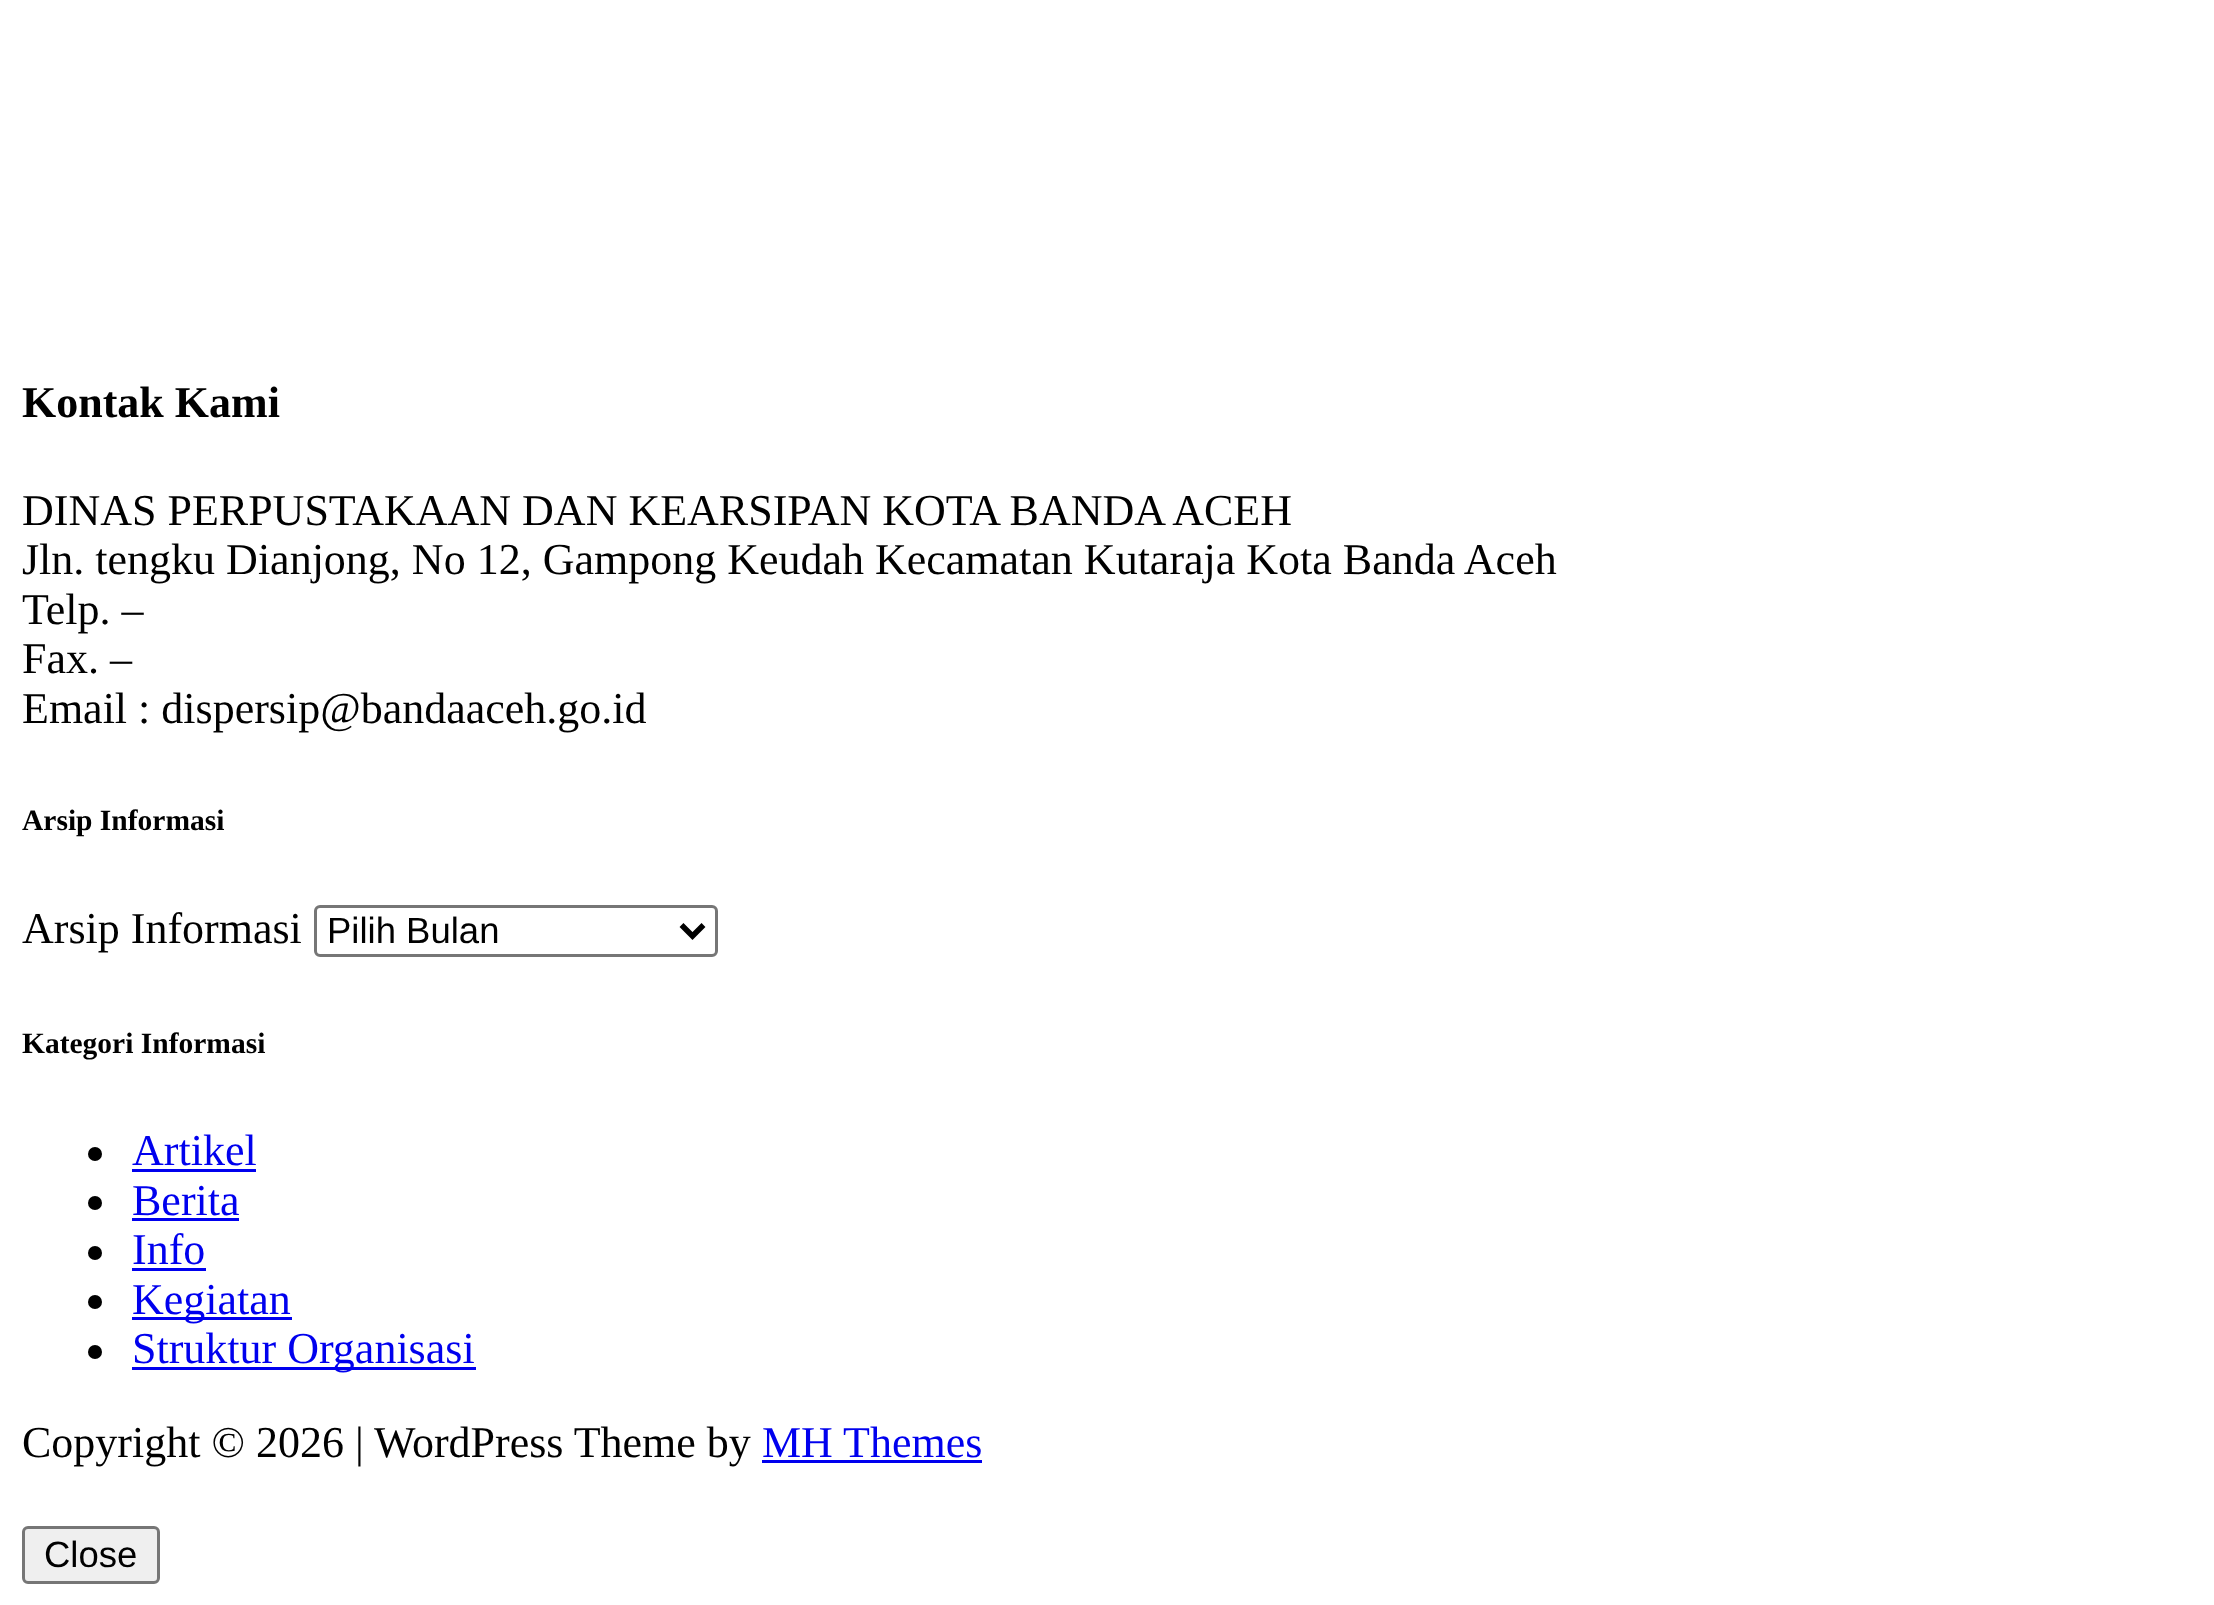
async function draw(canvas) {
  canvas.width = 2214;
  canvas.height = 1605;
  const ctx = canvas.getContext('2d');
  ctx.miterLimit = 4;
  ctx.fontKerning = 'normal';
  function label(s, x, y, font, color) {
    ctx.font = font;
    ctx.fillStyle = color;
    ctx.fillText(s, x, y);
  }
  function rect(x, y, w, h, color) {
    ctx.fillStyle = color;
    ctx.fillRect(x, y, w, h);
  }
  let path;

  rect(0, 0, 2214, 1605, '#fff');
  label('Kontak Kami', 22, 417, 'bold 44px Liberation Serif', '#000');
  label('DINAS PERPUSTAKAAN DAN KEARSIPAN KOTA BANDA ACEH', 22, 525, '44px Liberation Serif', '#000');
  label('Jln. tengku Dianjong, No 12, Gampong Keudah Kecamatan Kutaraja Kota Banda Aceh', 22, 574, '44px Liberation Serif', '#000');
  label('Telp. –', 22, 624, '44px Liberation Serif', '#000');
  label('Fax. –', 22, 673, '44px Liberation Serif', '#000');
  label('Email : dispersip@bandaaceh.go.id', 22, 723, '44px Liberation Serif', '#000');
  label('Arsip Informasi', 22, 830, 'bold 29.5px Liberation Serif', '#000');
  label('Arsip Informasi', 22, 943, '44px Liberation Serif', '#000');
  ctx.beginPath();
  ctx.roundRect(315.5, 906.5, 401, 49, 4.5);
  ctx.strokeStyle = '#767676';
  ctx.lineWidth = 3;
  ctx.stroke();
  path = new Path2D('M681.5 925L692.5 936L703.5 925');
  ctx.strokeStyle = '#000';
  ctx.lineWidth = 5.5;
  ctx.stroke(path);
  label('Pilih Bulan', 327, 943, '36.5px Liberation Sans', '#000');
  label('Kategori Informasi', 22, 1053, 'bold 29.5px Liberation Serif', '#000');
  ctx.beginPath();
  ctx.arc(95, 1154, 7, 0, 2 * Math.PI);
  ctx.fill();
  label('Artikel', 132, 1165, '44px Liberation Serif', '#00e');
  rect(132, 1169, 124, 3, '#00e');
  ctx.fillStyle = '#000';
  ctx.beginPath();
  ctx.arc(95, 1203, 7, 0, 2 * Math.PI);
  ctx.fill();
  label('Berita', 132, 1215, '44px Liberation Serif', '#00e');
  rect(132, 1218, 107, 3, '#00e');
  ctx.fillStyle = '#000';
  ctx.beginPath();
  ctx.arc(95, 1253, 7, 0, 2 * Math.PI);
  ctx.fill();
  label('Info', 132, 1264, '44px Liberation Serif', '#00e');
  rect(132, 1268, 74, 3, '#00e');
  ctx.fillStyle = '#000';
  ctx.beginPath();
  ctx.arc(95, 1302, 7, 0, 2 * Math.PI);
  ctx.fill();
  rect(132, 1317, 160, 3, '#00e');
  label('Kegiatan', 132, 1314, '44px Liberation Serif', '#00e');
  ctx.fillStyle = '#000';
  ctx.beginPath();
  ctx.arc(95, 1352, 7, 0, 2 * Math.PI);
  ctx.fill();
  rect(132, 1367, 344, 3, '#00e');
  label('Struktur Organisasi', 132, 1363, '44px Liberation Serif', '#00e');
  label('Copyright © 2026 | WordPress Theme by', 22, 1457, '44px Liberation Serif', '#000');
  label('MH Themes', 762, 1457, '44px Liberation Serif', '#00e');
  rect(762, 1460, 220, 3, '#00e');
  ctx.fillStyle = '#efefef';
  ctx.beginPath();
  ctx.roundRect(23.5, 1527.5, 135, 55, 4.5);
  ctx.fill();
  ctx.strokeStyle = '#767676';
  ctx.lineWidth = 3;
  ctx.stroke();
  label('Close', 44, 1567, '36.5px Liberation Sans', '#000');
}

draw(document.querySelector('canvas'));
